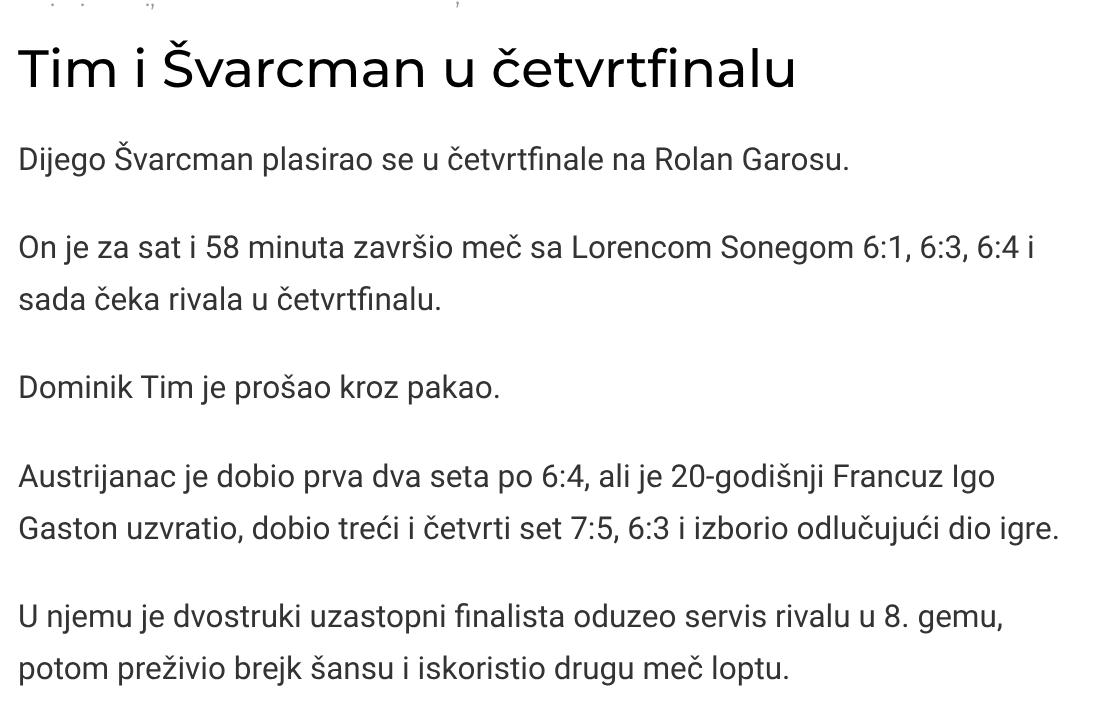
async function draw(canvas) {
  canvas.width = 1102;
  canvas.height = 715;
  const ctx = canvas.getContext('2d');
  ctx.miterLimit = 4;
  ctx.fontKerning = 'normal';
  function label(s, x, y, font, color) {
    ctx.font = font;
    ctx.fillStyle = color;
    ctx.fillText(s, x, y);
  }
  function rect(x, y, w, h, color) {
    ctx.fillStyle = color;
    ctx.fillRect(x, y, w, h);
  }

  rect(0, 0, 1102, 715, '#fff');
  label('.', 50, 6, '24px Montserrat', '#999');
  label('.', 80, 6, '24px Montserrat', '#999');
  label('.,', 145, 6, '24px Montserrat', '#999');
  label(',', 455, 4, '24px Montserrat', '#999');
  label('Tim i Švarcman u četvrtfinalu', 18, 87, '500 52.5px Montserrat', '#000');
  label('Dijego Švarcman plasirao se u četvrtfinale na Rolan Garosu.', 18, 170, '31.5px Roboto', '#333');
  label('On je za sat i 58 minuta završio meč sa Lorencom Sonegom 6:1, 6:3, 6:4 i', 18, 258, '31.5px Roboto', '#333');
  label('sada čeka rivala u četvrtfinalu.', 18, 310, '31.5px Roboto', '#333');
  label('Dominik Tim je prošao kroz pakao.', 18, 398, '31.5px Roboto', '#333');
  label('Austrijanac je dobio prva dva seta po 6:4, ali je 20-godišnji Francuz Igo', 18, 487, '31.5px Roboto', '#333');
  label('Gaston uzvratio, dobio treći i četvrti set 7:5, 6:3 i izborio odlučujući dio igre.', 18, 539, '31.5px Roboto', '#333');
  label('U njemu je dvostruki uzastopni finalista oduzeo servis rivalu u 8. gemu,', 18, 627, '31.5px Roboto', '#333');
  label('potom preživio brejk šansu i iskoristio drugu meč loptu.', 18, 679, '31.5px Roboto', '#333');
}

draw(document.querySelector('canvas'));
